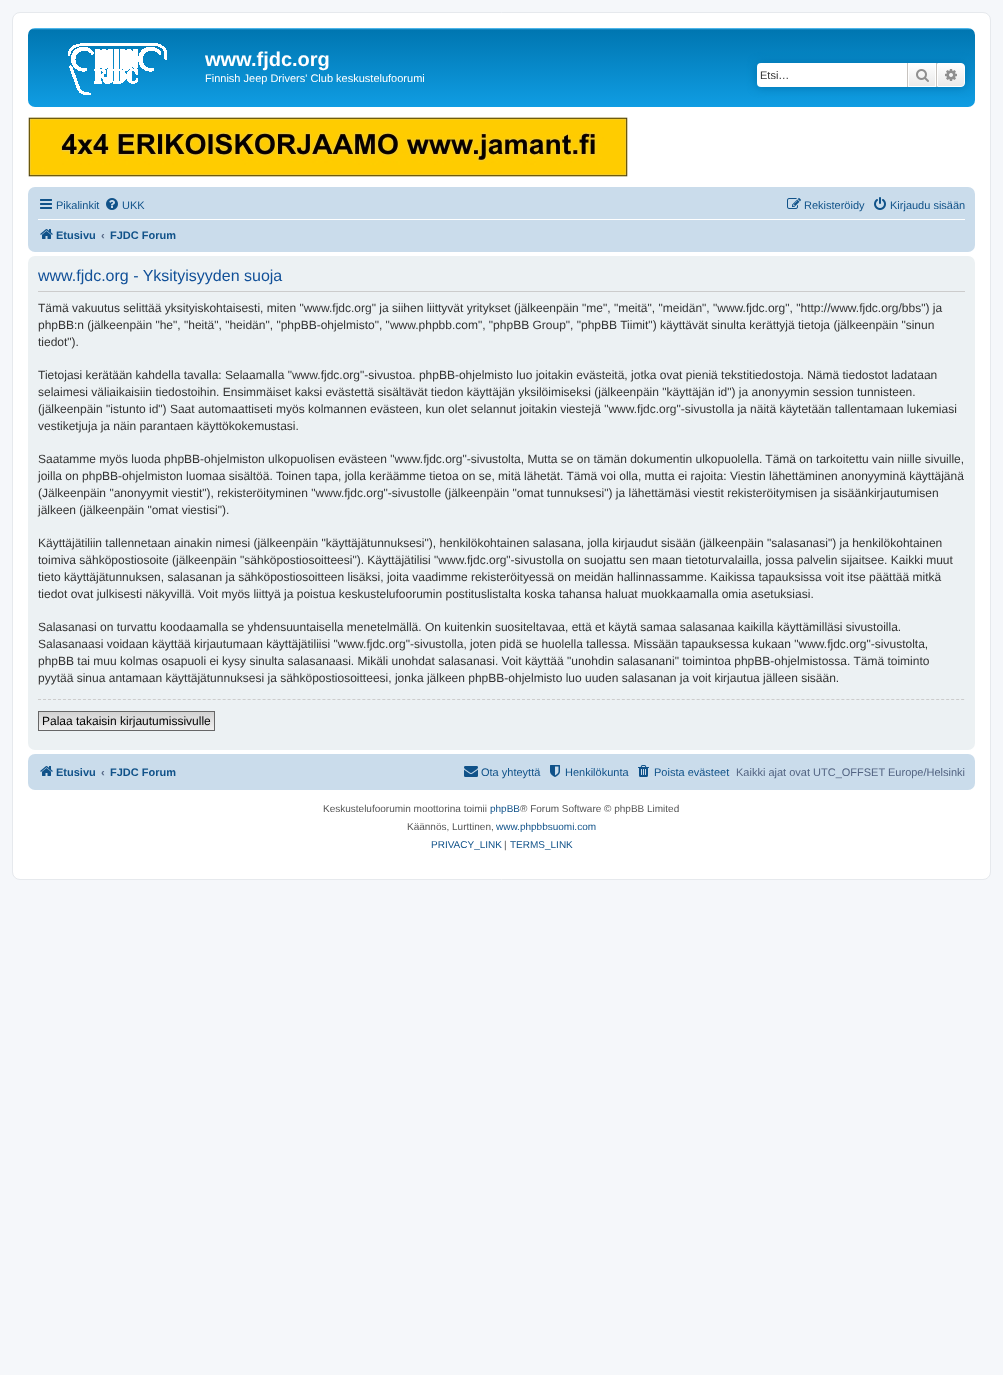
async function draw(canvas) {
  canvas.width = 1003;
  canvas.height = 1375;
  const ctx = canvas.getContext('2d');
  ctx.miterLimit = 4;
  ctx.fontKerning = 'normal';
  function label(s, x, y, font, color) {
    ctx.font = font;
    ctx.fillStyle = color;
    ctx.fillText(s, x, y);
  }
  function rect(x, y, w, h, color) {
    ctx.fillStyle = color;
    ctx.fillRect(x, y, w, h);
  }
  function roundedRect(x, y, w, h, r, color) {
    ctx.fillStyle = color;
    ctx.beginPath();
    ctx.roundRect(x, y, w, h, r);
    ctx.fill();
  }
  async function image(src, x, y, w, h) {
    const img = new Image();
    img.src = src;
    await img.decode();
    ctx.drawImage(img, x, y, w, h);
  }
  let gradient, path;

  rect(0, 0, 1003, 1375, '#f5f7fa');
  ctx.fillStyle = '#fff';
  ctx.beginPath();
  ctx.roundRect(12.5, 12.5, 978, 867, 7.5);
  ctx.fill();
  ctx.strokeStyle = '#e6e9ed';
  ctx.stroke();
  gradient = ctx.createLinearGradient(502, 28, 502, 120);
  gradient.addColorStop(0, '#6aceff');
  gradient.addColorStop(0.02, '#0076b1');
  gradient.addColorStop(1, '#12a3eb');
  ctx.fillStyle = gradient;
  ctx.beginPath();
  ctx.roundRect(28, 28, 947, 79, 7);
  ctx.fill();
  await image('assets/img1.png', 68, 43, 99, 52);
  label('www.fjdc.org', 205, 66, 'bold 20px Liberation Sans', '#fff');
  label('Finnish Jeep Drivers\' Club keskustelufoorumi', 205, 82, '11px Liberation Sans', '#fff');
  ctx.fillStyle = '#0075b0';
  ctx.filter = 'blur(5px)';
  ctx.beginPath();
  ctx.roundRect(757, 63, 208, 24, 4);
  ctx.fill();
  ctx.filter = 'none';
  ctx.fillStyle = '#fff';
  ctx.beginPath();
  ctx.roundRect(757, 63, 150, 24, [4, 0, 0, 4]);
  ctx.fill();
  label('Etsi…', 760, 79, '11px Liberation Sans', '#333');
  gradient = ctx.createLinearGradient(922, 63, 922, 87);
  gradient.addColorStop(0, '#fff');
  gradient.addColorStop(1, '#e9e9e9');
  ctx.fillStyle = gradient;
  ctx.fillRect(909, 64, 26, 22);
  ctx.strokeStyle = '#fff';
  ctx.strokeRect(908.5, 63.5, 27, 23);
  rect(936, 63, 1, 24, '#c7c3bf');
  rect(907, 63, 1, 24, '#c7c3bf');
  await image('assets/img2.png', 916, 69, 13, 13);
  gradient = ctx.createLinearGradient(951, 63, 951, 87);
  gradient.addColorStop(0, '#fff');
  gradient.addColorStop(1, '#e9e9e9');
  ctx.fillStyle = gradient;
  ctx.beginPath();
  ctx.roundRect(937.5, 63.5, 27, 23, [0, 3.5, 3.5, 0]);
  ctx.fill();
  ctx.stroke();
  await image('assets/img3.png', 945, 69, 12, 12);
  await image('assets/img4.png', 28, 117, 600, 60);
  roundedRect(28, 187, 947, 65, 7, '#cadceb');
  await image('assets/img5.png', 40, 199, 12, 10);
  label('Pikalinkit', 56, 209, '11px Liberation Sans', '#105289');
  await image('assets/img6.png', 106, 198, 12, 12);
  label('UKK', 122, 209, '11px Liberation Sans', '#105289');
  await image('assets/img7.png', 787, 198, 14, 11);
  label('Rekisteröidy', 804, 209, '11px Liberation Sans', '#105289');
  await image('assets/img8.png', 874, 197, 12, 13);
  label('Kirjaudu sisään', 890, 209, '11px Liberation Sans', '#105289');
  rect(38, 219, 927, 1, '#fff');
  await image('assets/img9.png', 40, 229, 13, 10);
  label('Etusivu', 56, 239, 'bold 11px Liberation Sans', '#105289');
  label('‹', 101, 239, 'bold 11px Liberation Sans', '#536482');
  label('FJDC Forum', 110, 239, 'bold 11px Liberation Sans', '#105289');
  roundedRect(28, 256, 947, 494, 7, '#ecf1f3');
  rect(38, 291, 927, 1, '#ccc');
  label('www.fjdc.org - Yksityisyyden suoja', 38, 281, '16px Liberation Sans', '#115098');
  label('Tämä vakuutus selittää yksityiskohtaisesti, miten "www.fjdc.org" ja siihen liittyvät yritykset (jälkeenpäin "me", "meitä", "meidän", "www.fjdc.org", "http://www.fjdc.org/bbs") ja', 38, 312, '12px Liberation Sans', '#333');
  label('phpBB:n (jälkeenpäin "he", "heitä", "heidän", "phpBB-ohjelmisto", "www.phpbb.com", "phpBB Group", "phpBB Tiimit") käyttävät sinulta kerättyjä tietoja (jälkeenpäin "sinun', 38, 329, '12px Liberation Sans', '#333');
  label('tiedot").', 38, 346, '12px Liberation Sans', '#333');
  label('Tietojasi kerätään kahdella tavalla: Selaamalla "www.fjdc.org"-sivustoa. phpBB-ohjelmisto luo joitakin evästeitä, jotka ovat pieniä tekstitiedostoja. Nämä tiedostot ladataan', 38, 379, '12px Liberation Sans', '#333');
  label('selaimesi väliaikaisiin tiedostoihin. Ensimmäiset kaksi evästettä sisältävät tiedon käyttäjän yksilöimiseksi (jälkeenpäin "käyttäjän id") ja anonyymin session tunnisteen.', 38, 396, '12px Liberation Sans', '#333');
  label('(jälkeenpäin "istunto id") Saat automaattiseti myös kolmannen evästeen, kun olet selannut joitakin viestejä "www.fjdc.org"-sivustolla ja näitä käytetään tallentamaan lukemiasi', 38, 413, '12px Liberation Sans', '#333');
  label('vestiketjuja ja näin parantaen käyttökokemustasi.', 38, 430, '12px Liberation Sans', '#333');
  label('Saatamme myös luoda phpBB-ohjelmiston ulkopuolisen evästeen "www.fjdc.org"-sivustolta, Mutta se on tämän dokumentin ulkopuolella. Tämä on tarkoitettu vain niille sivuille,', 38, 463, '12px Liberation Sans', '#333');
  label('joilla on phpBB-ohjelmiston luomaa sisältöä. Toinen tapa, jolla keräämme tietoa on se, mitä lähetät. Tämä voi olla, mutta ei rajoita: Viestin lähettäminen anonyyminä käyttäjänä', 38, 480, '12px Liberation Sans', '#333');
  label('(Jälkeenpäin "anonyymit viestit"), rekisteröityminen "www.fjdc.org"-sivustolle (jälkeenpäin "omat tunnuksesi") ja lähettämäsi viestit rekisteröitymisen ja sisäänkirjautumisen', 38, 497, '12px Liberation Sans', '#333');
  label('jälkeen (jälkeenpäin "omat viestisi").', 38, 514, '12px Liberation Sans', '#333');
  label('Käyttäjätiliin tallennetaan ainakin nimesi (jälkeenpäin "käyttäjätunnuksesi"), henkilökohtainen salasana, jolla kirjaudut sisään (jälkeenpäin "salasanasi") ja henkilökohtainen', 38, 547, '12px Liberation Sans', '#333');
  label('toimiva sähköpostiosoite (jälkeenpäin "sähköpostiosoitteesi"). Käyttäjätilisi "www.fjdc.org"-sivustolla on suojattu sen maan tietoturvalailla, jossa palvelin sijaitsee. Kaikki muut', 38, 564, '12px Liberation Sans', '#333');
  label('tieto käyttäjätunnuksen, salasanan ja sähköpostiosoitteen lisäksi, joita vaadimme rekisteröityessä on meidän hallinnassamme. Kaikissa tapauksissa voit itse päättää mitkä', 38, 581, '12px Liberation Sans', '#333');
  label('tiedot ovat julkisesti näkyvillä. Voit myös liittyä ja poistua keskustelufoorumin postituslistalta koska tahansa haluat muokkaamalla omia asetuksiasi.', 38, 598, '12px Liberation Sans', '#333');
  label('Salasanasi on turvattu koodaamalla se yhdensuuntaisella menetelmällä. On kuitenkin suositeltavaa, että et käytä samaa salasanaa kaikilla käyttämilläsi sivustoilla.', 38, 631, '12px Liberation Sans', '#333');
  label('Salasanaasi voidaan käyttää kirjautumaan käyttäjätiliisi "www.fjdc.org"-sivustolla, joten pidä se huolella tallessa. Missään tapauksessa kukaan "www.fjdc.org"-sivustolta,', 38, 648, '12px Liberation Sans', '#333');
  label('phpBB tai muu kolmas osapuoli ei kysy sinulta salasanaasi. Mikäli unohdat salasanasi. Voit käyttää "unohdin salasanani" toimintoa phpBB-ohjelmistossa. Tämä toiminto', 38, 665, '12px Liberation Sans', '#333');
  label('pyytää sinua antamaan käyttäjätunnuksesi ja sähköpostiosoitteesi, jonka jälkeen phpBB-ohjelmisto luo uuden salasanan ja voit kirjautua jälleen sisään.', 38, 682, '12px Liberation Sans', '#333');
  path = new Path2D('M38 699.5H965');
  ctx.strokeStyle = '#ccc';
  ctx.setLineDash([3, 1.99]);
  ctx.stroke(path);
  gradient = ctx.createLinearGradient(127, 712, 127, 730);
  gradient.addColorStop(0, '#d2d2d2');
  gradient.addColorStop(1, '#efefef');
  ctx.fillStyle = gradient;
  ctx.fillRect(39, 712, 175, 18);
  ctx.strokeStyle = '#666';
  ctx.setLineDash([]);
  ctx.strokeRect(38.5, 711.5, 176, 19);
  label('Palaa takaisin kirjautumissivulle', 42, 725, '12px Liberation Sans', '#000');
  roundedRect(28, 754, 947, 36, 7, '#cadceb');
  await image('assets/img9.png', 40, 766, 13, 10);
  label('Etusivu', 56, 776, 'bold 11px Liberation Sans', '#105289');
  label('‹', 101, 776, 'bold 11px Liberation Sans', '#536482');
  label('FJDC Forum', 110, 776, 'bold 11px Liberation Sans', '#105289');
  await image('assets/img10.png', 464, 766, 14, 11);
  label('Ota yhteyttä', 481, 776, '11px Liberation Sans', '#105289');
  await image('assets/img11.png', 550, 765, 10, 12);
  label('Henkilökunta', 565, 776, '11px Liberation Sans', '#105289');
  await image('assets/img12.png', 638, 765, 11, 12);
  label('Poista evästeet', 654, 776, '11px Liberation Sans', '#105289');
  label('Kaikki ajat ovat UTC_OFFSET Europe/Helsinki', 736, 776, '11px Liberation Sans', '#536482');
  label('Keskustelufoorumin moottorina toimii', 323, 812, '10px Liberation Sans', '#555');
  label('phpBB', 490, 812, '10px Liberation Sans', '#105289');
  label('® Forum Software © phpBB Limited', 520, 812, '10px Liberation Sans', '#555');
  label('Käännös, Lurttinen,', 407, 830, '10px Liberation Sans', '#555');
  label('www.phpbbsuomi.com', 496, 830, '10px Liberation Sans', '#105289');
  label('PRIVACY_LINK', 431, 848, '10px Liberation Sans', '#105289');
  label('|', 504, 848, '10px Liberation Sans', '#555');
  label('TERMS_LINK', 510, 848, '10px Liberation Sans', '#105289');
}

draw(document.querySelector('canvas'));
